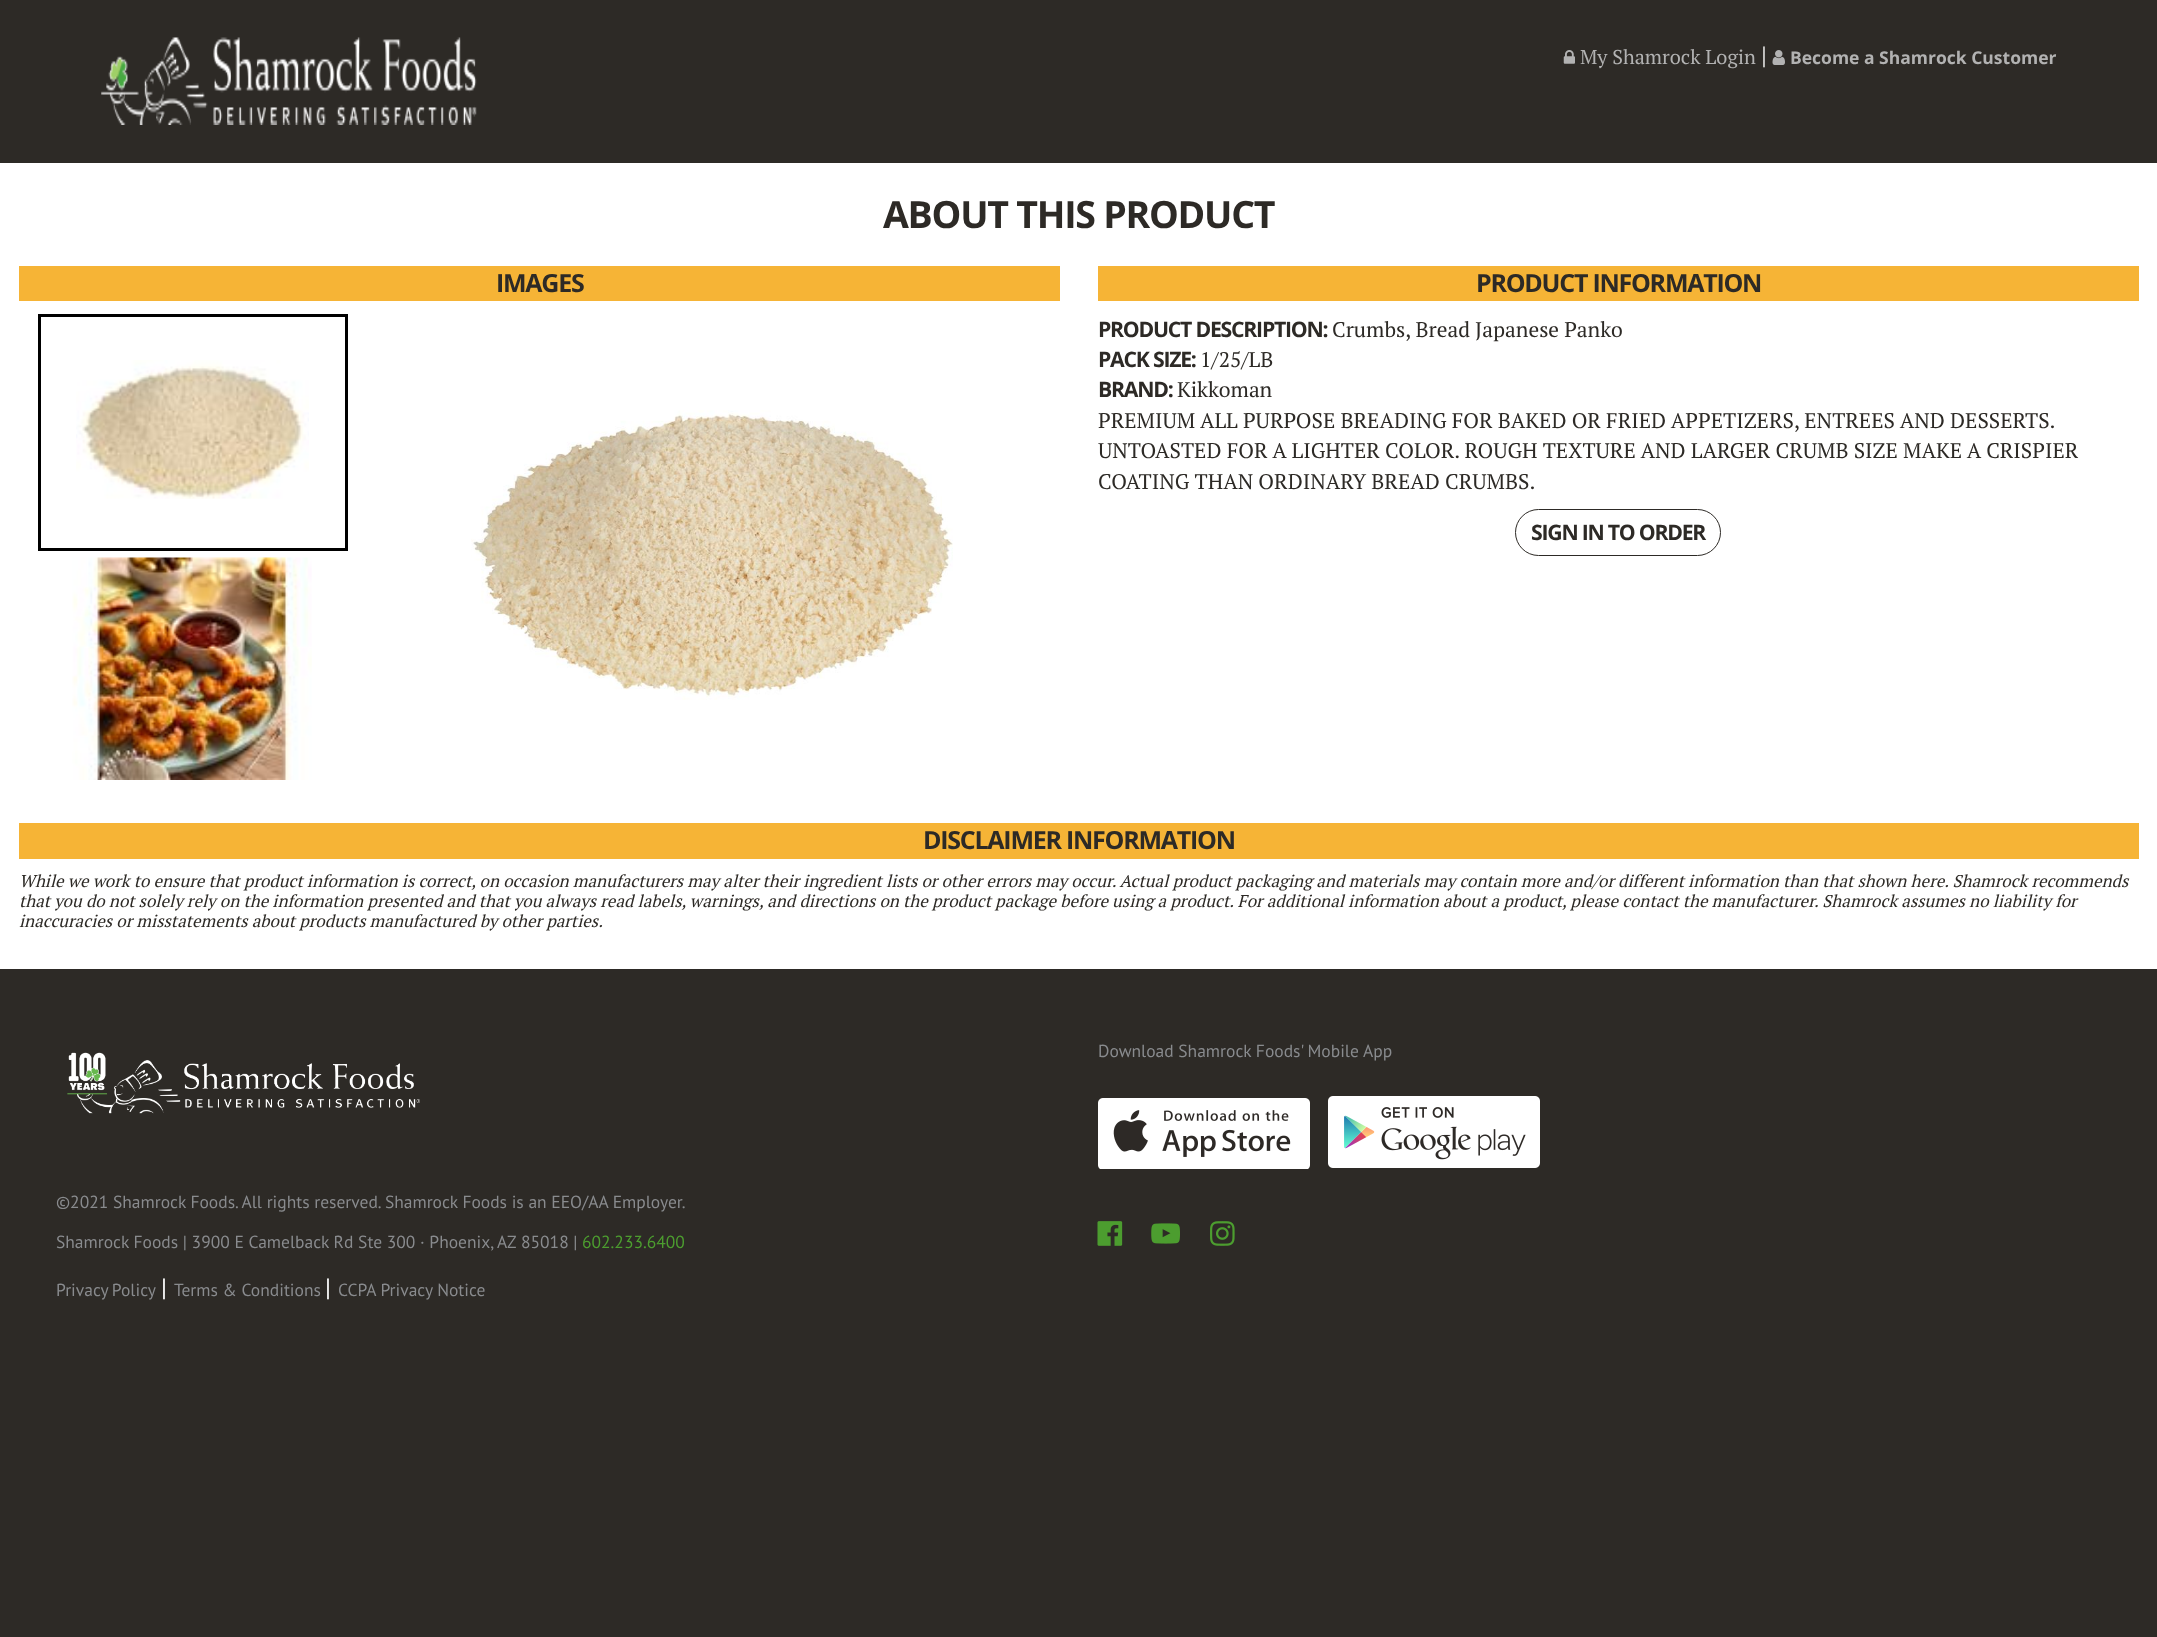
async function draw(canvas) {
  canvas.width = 2157;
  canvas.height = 1637;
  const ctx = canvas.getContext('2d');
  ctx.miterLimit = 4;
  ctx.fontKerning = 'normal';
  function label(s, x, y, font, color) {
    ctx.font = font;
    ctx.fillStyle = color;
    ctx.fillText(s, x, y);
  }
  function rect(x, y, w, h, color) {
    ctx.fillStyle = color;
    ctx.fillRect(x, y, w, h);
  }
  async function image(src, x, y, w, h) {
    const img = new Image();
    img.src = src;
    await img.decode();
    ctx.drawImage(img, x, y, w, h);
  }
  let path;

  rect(0, 0, 2157, 1637, '#fff');
  rect(0, 0, 2157, 163, '#2d2a26');
  await image('assets/img1.png', 101, 37, 376, 88);
  await image('assets/img2.png', 1563, 50, 12, 14);
  label('My Shamrock Login', 1580, 64, '20px PT Serif', '#b2b2b2');
  label('|', 1761, 64, '25px PT Serif', '#fff');
  await image('assets/img3.png', 1772, 50, 13, 15);
  label('Become a Shamrock Customer', 1790, 64, 'bold 17.5px Open Sans', '#b2b2b2');
  ctx.letterSpacing = '-1.25px';
  label('ABOUT THIS PRODUCT', 883, 228, 'bold 37.5px Open Sans', '#2d2a26');
  rect(19, 266, 1041, 35, '#f6b436');
  label('IMAGES', 496, 292, 'bold 25px Open Sans', '#2d2a26');
  ctx.strokeStyle = '#000';
  ctx.lineWidth = 3;
  ctx.strokeRect(39.5, 315.5, 307, 234);
  await image('assets/img4.png', 76, 360, 233, 139);
  await image('assets/img5.png', 72, 557, 240, 223);
  await image('assets/img6.png', 471, 410, 482, 290);
  rect(1098, 266, 1041, 35, '#f6b436');
  label('PRODUCT INFORMATION', 1476, 292, 'bold 25px Open Sans', '#2d2a26');
  label('PRODUCT DESCRIPTION:', 1098, 337, 'bold 21.25px Open Sans', '#2d2a26');
  ctx.letterSpacing = '0px';
  label('Crumbs, Bread Japanese Panko', 1332, 337, '21.25px PT Serif', '#2d2a26');
  ctx.letterSpacing = '-1.25px';
  label('PACK SIZE:', 1098, 367, 'bold 21.25px Open Sans', '#2d2a26');
  ctx.letterSpacing = '0px';
  label('1/25/LB', 1200, 367, '21.25px PT Serif', '#2d2a26');
  ctx.letterSpacing = '-1.25px';
  label('BRAND:', 1098, 397, 'bold 21.25px Open Sans', '#2d2a26');
  ctx.letterSpacing = '0px';
  label('Kikkoman', 1177, 397, '21.25px PT Serif', '#2d2a26');
  label('PREMIUM ALL PURPOSE BREADING FOR BAKED OR FRIED APPETIZERS, ENTREES AND DESSERTS.', 1098, 428, '21.25px PT Serif', '#2d2a26');
  label('UNTOASTED FOR A LIGHTER COLOR. ROUGH TEXTURE AND LARGER CRUMB SIZE MAKE A CRISPIER', 1098, 458, '21.25px PT Serif', '#2d2a26');
  label('COATING THAN ORDINARY BREAD CRUMBS.', 1098, 489, '21.25px PT Serif', '#2d2a26');
  ctx.beginPath();
  ctx.roundRect(1515.5, 509.5, 205, 46, 23);
  ctx.strokeStyle = '#2d2a26';
  ctx.lineWidth = 1;
  ctx.stroke();
  ctx.letterSpacing = '-1.25px';
  label('SIGN IN TO ORDER', 1531, 540, 'bold 21.25px Open Sans', '#2d2a26');
  rect(19, 823, 2120, 36, '#f6b436');
  label('DISCLAIMER INFORMATION', 923, 849, 'bold 25px Open Sans', '#2d2a26');
  ctx.letterSpacing = '0px';
  label('While we work to ensure that product information is correct, on occasion manufacturers may alter their ingredient lists or other errors may occur. Actual product packaging and materials may contain more and/or different information than that shown here. Shamrock recommends', 19, 887, 'italic 17px PT Serif', '#2d2a26');
  label('that you do not solely rely on the information presented and that you always read labels, warnings, and directions on the product package before using a product. For additional information about a product, please contact the manufacturer. Shamrock assumes no liability for', 19, 907, 'italic 17px PT Serif', '#2d2a26');
  label('inaccuracies or misstatements about products manufactured by other parties.', 19, 927, 'italic 17px PT Serif', '#2d2a26');
  path = new Path2D('M-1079 969V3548H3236V969H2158V1390H0V969Z');
  ctx.fill(path);
  rect(0, 969, 2157, 421, '#2d2a26');
  label('Download Shamrock Foods\' Mobile App', 1098, 1057, '17.5px PT Sans', '#898b8e');
  await image('assets/img7.png', 1098, 1098, 212, 71);
  await image('assets/img8.png', 1328, 1096, 212, 72);
  await image('assets/img9.png', 1097, 1221, 26, 25);
  await image('assets/img10.png', 1151, 1223, 29, 21);
  await image('assets/img11.png', 1210, 1221, 25, 25);
  await image('assets/img12.png', 67, 1052, 353, 62);
  label('©2021 Shamrock Foods. All rights reserved. Shamrock Foods is an EEO/AA Employer.', 56, 1208, '17.5px PT Sans', '#898b8e');
  label('Shamrock Foods | 3900 E Camelback Rd Ste 300 · Phoenix,', 56, 1248, '17.5px PT Sans', '#898b8e');
  label('AZ', 497, 1248, '17.5px PT Sans', '#898b8e');
  label('85018 |', 521, 1248, '17.5px PT Sans', '#898b8e');
  label('602.233.6400', 582, 1248, '17.5px PT Sans', '#4c9d2f');
  ctx.wordSpacing = '-1px';
  label('Privacy Policy', 56, 1296, '17.5px PT Sans', '#898b8e');
  ctx.wordSpacing = '0px';
  label('|', 161, 1296, '25px PT Sans', '#fff');
  label('Terms & Conditions', 174, 1296, '17.5px PT Sans', '#898b8e');
  label('|', 325, 1296, '25px PT Sans', '#fff');
  label('CCPA Privacy Notice', 338, 1296, '17.5px PT Sans', '#898b8e');
}

draw(document.querySelector('canvas'));
